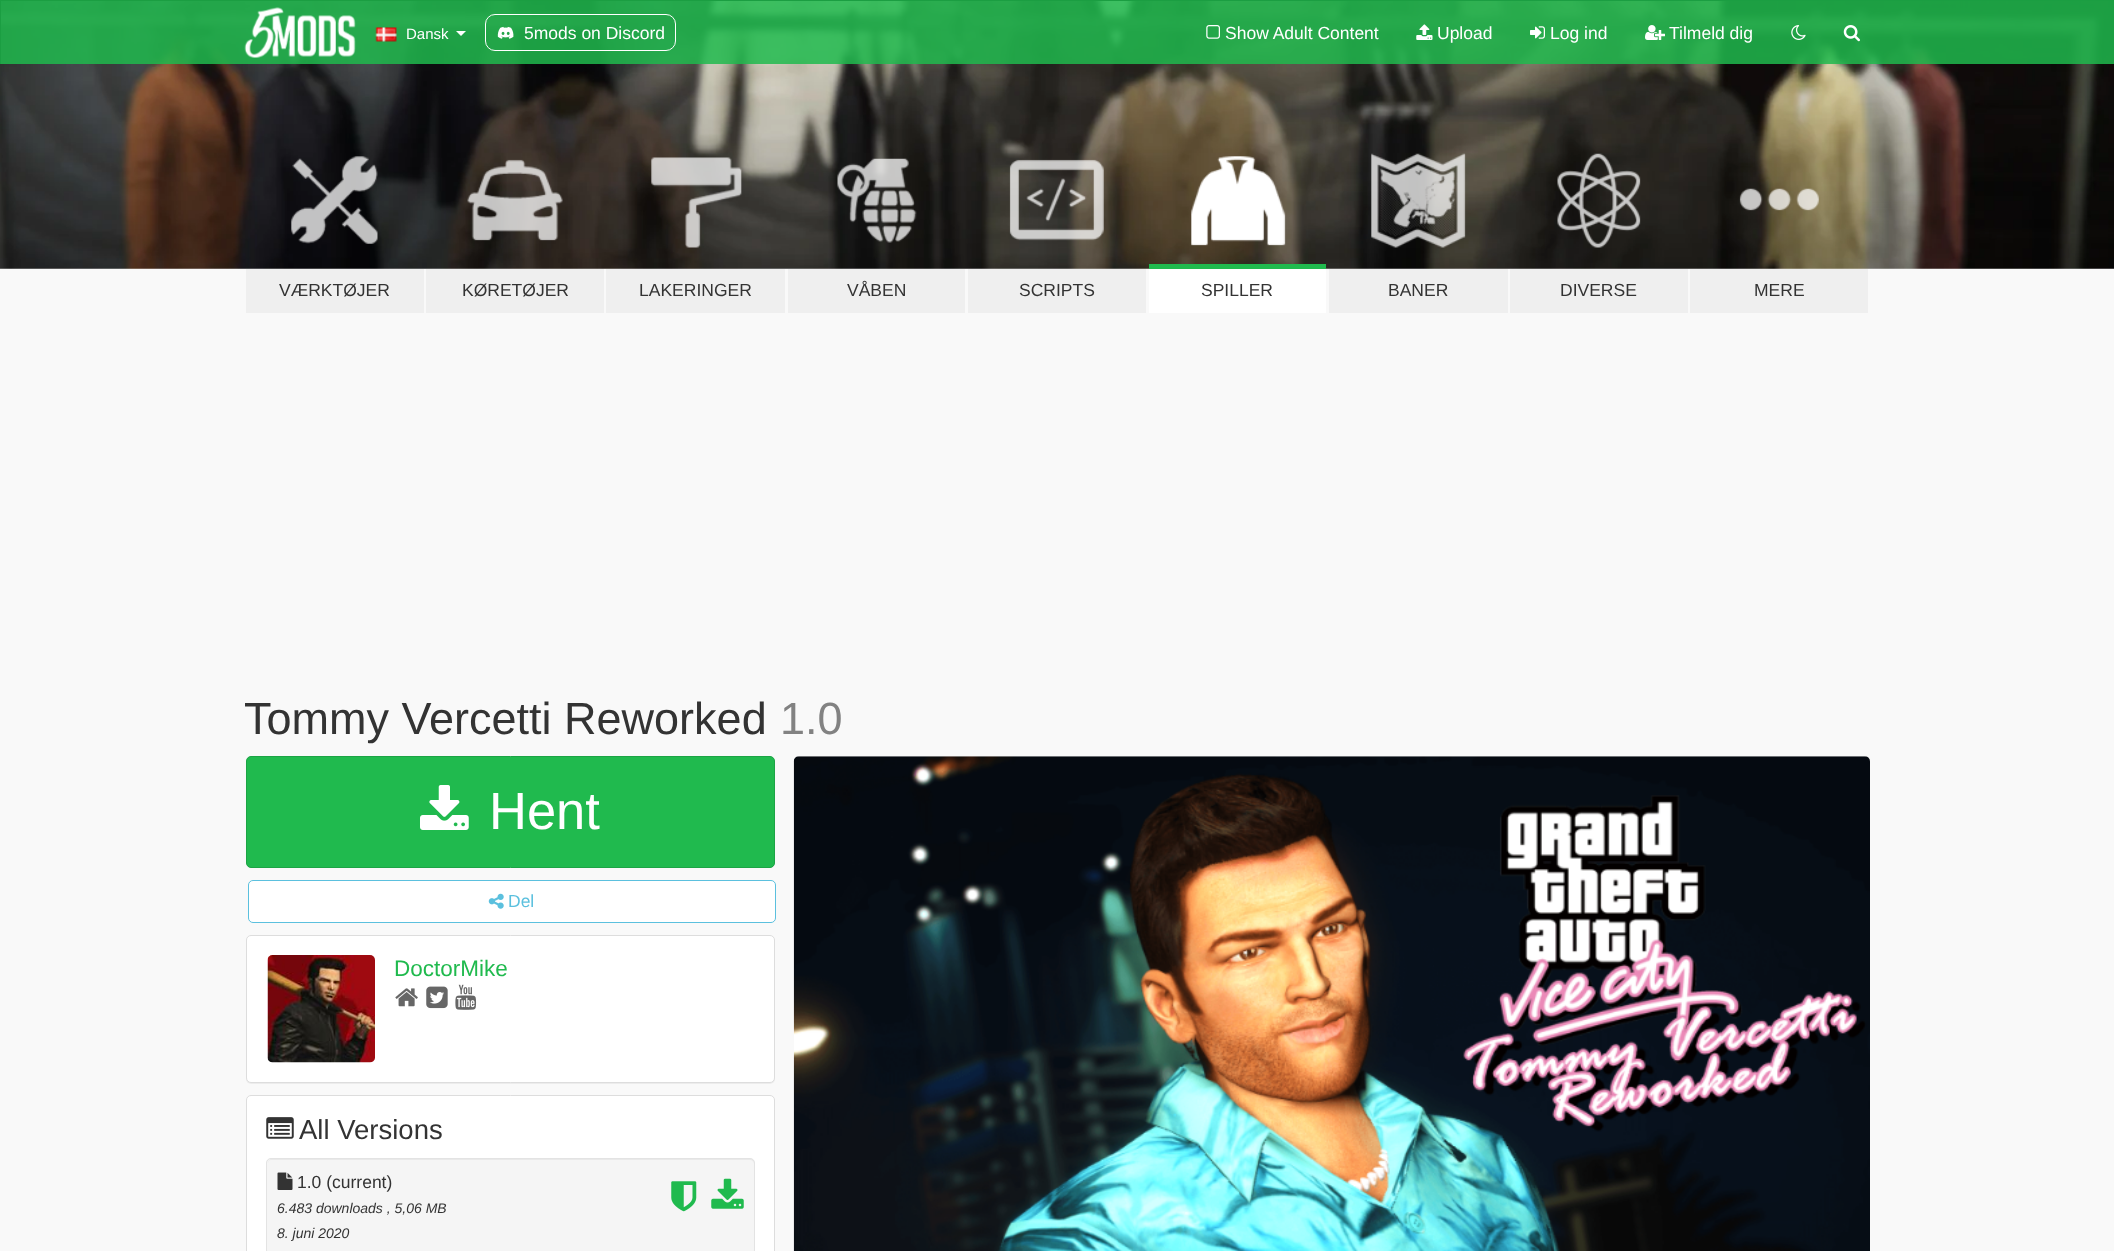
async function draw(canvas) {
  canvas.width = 2114;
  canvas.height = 1251;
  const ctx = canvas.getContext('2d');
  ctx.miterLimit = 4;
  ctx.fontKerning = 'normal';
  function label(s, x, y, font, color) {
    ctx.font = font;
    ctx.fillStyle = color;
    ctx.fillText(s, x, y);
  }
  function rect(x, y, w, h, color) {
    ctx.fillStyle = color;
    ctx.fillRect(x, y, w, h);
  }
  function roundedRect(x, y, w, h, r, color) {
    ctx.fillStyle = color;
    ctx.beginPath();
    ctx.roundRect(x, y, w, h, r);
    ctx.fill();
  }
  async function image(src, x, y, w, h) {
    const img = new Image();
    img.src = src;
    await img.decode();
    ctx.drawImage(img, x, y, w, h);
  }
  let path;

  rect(0, 0, 2114, 1251, '#f9f9f9');
  await image('assets/img10.png', 0, 1, 2114, 268);
  rect(1, 1, 2113, 63, '#20ba4ed9');
  rect(0, 0, 2114, 1, '#1b9e42');
  rect(0, 0, 1, 64, '#1b9e42');
  await image('assets/img1.png', 244, 7, 112, 51);
  await image('assets/img2.png', 375, 27, 22, 15);
  label('Dansk', 406, 39, '15px Liberation Sans', '#fff');
  path = new Path2D('M456 31H466L461 36Z');
  ctx.fill(path);
  ctx.beginPath();
  ctx.roundRect(485.5, 14.5, 190, 36, 9.5);
  ctx.strokeStyle = '#fff';
  ctx.stroke();
  await image('assets/img3.png', 497, 26, 17, 13);
  label('5mods on Discord', 524, 39, '17.5px Liberation Sans', '#fff');
  await image('assets/img4.png', 1206, 25, 14, 14);
  label('Show Adult Content', 1225, 39, '17.5px Liberation Sans', '#fff');
  await image('assets/img5.png', 1416, 24, 17, 16);
  label('Upload', 1437, 39, '17.5px Liberation Sans', '#fff');
  await image('assets/img6.png', 1530, 26, 15, 13);
  label('Log ind', 1550, 39, '17.5px Liberation Sans', '#fff');
  await image('assets/img7.png', 1645, 25, 20, 15);
  label('Tilmeld dig', 1669, 39, '17.5px Liberation Sans', '#fff');
  await image('assets/img8.png', 1791, 25, 15, 15);
  await image('assets/img9.png', 1843, 25, 17, 17);
  await image('assets/img11.png', 291, 156, 87, 88);
  rect(246, 269, 178, 44, '#efefef');
  label('VÆRKTØJER', 279, 296, '17.5px Liberation Sans', '#333');
  await image('assets/img12.png', 467, 159, 96, 82);
  rect(426, 269, 178, 44, '#efefef');
  label('KØRETØJER', 462, 296, '17.5px Liberation Sans', '#333');
  await image('assets/img13.png', 651, 157, 91, 91);
  rect(606, 269, 179, 44, '#efefef');
  label('LAKERINGER', 639, 296, '17.5px Liberation Sans', '#333');
  await image('assets/img14.png', 837, 158, 80, 85);
  rect(788, 269, 177, 44, '#efefef');
  label('VÅBEN', 847, 296, '17.5px Liberation Sans', '#333');
  await image('assets/img15.png', 1009, 159, 95, 82);
  rect(968, 269, 178, 44, '#efefef');
  label('SCRIPTS', 1019, 296, '17.5px Liberation Sans', '#333');
  await image('assets/img16.png', 1191, 156, 95, 90);
  rect(1149, 264, 177, 5, '#20ba4e');
  rect(1149, 269, 177, 44, '#fff');
  label('SPILLER', 1201, 296, '17.5px Liberation Sans', '#333');
  await image('assets/img17.png', 1371, 153, 95, 95);
  rect(1329, 269, 179, 44, '#efefef');
  label('BANER', 1388, 296, '17.5px Liberation Sans', '#333');
  await image('assets/img18.png', 1557, 153, 84, 95);
  rect(1510, 269, 178, 44, '#efefef');
  label('DIVERSE', 1560, 296, '17.5px Liberation Sans', '#333');
  await image('assets/img19.png', 1739, 188, 80, 23);
  rect(1690, 269, 178, 44, '#efefef');
  label('MERE', 1754, 296, '17.5px Liberation Sans', '#333');
  label('Tommy Vercetti Reworked', 244, 734, '45px Liberation Sans', '#333');
  label('1.0', 780, 734, '45px Liberation Sans', '#828282');
  ctx.fillStyle = '#20ba4e';
  ctx.beginPath();
  ctx.roundRect(246.5, 756.5, 528, 111, 4.5);
  ctx.fill();
  ctx.strokeStyle = '#1ca445';
  ctx.stroke();
  await image('assets/img20.png', 420, 785, 49, 45);
  label('Hent', 489, 829, '52.5px Liberation Sans', '#fff');
  ctx.beginPath();
  ctx.roundRect(248.5, 880.5, 527, 42, 4.5);
  ctx.fill();
  ctx.strokeStyle = '#5bc0de';
  ctx.stroke();
  await image('assets/img21.png', 488, 893, 16, 16);
  label('Del', 508, 907, '17.5px Liberation Sans', '#5bc0de');
  ctx.fillStyle = '#0000000d';
  ctx.filter = 'blur(0.5px)';
  ctx.beginPath();
  ctx.roundRect(246, 936, 529, 148, 5);
  ctx.fill();
  ctx.filter = 'none';
  ctx.fillStyle = '#fff';
  ctx.beginPath();
  ctx.roundRect(246.5, 935.5, 528, 147, 4.5);
  ctx.fill();
  ctx.strokeStyle = '#ddd';
  ctx.stroke();
  await image('assets/img22.png', 267, 955, 108, 108);
  label('DoctorMike', 394, 976, '22.5px Liberation Sans', '#20ba4e');
  await image('assets/img23.png', 395, 988, 23, 19);
  await image('assets/img24.png', 426, 986, 22, 23);
  await image('assets/img25.png', 455, 984, 22, 26);
  ctx.fillStyle = '#fff';
  ctx.beginPath();
  ctx.roundRect(246.5, 1095.5, 528, 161, 4.5);
  ctx.fill();
  ctx.stroke();
  await image('assets/img26.png', 266, 1117, 28, 22);
  label('All Versions', 299, 1139, '27.5px Liberation Sans', '#333');
  roundedRect(266, 1158, 489, 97, 5, '#f5f5f5');
  ctx.fillStyle = '#e9e9e9';
  path = new Path2D('M271 1160H750C752 1160 754 1162 754 1164C754 1161 753 1159 750 1159H272C269 1159 268 1161 268 1164C268 1162 269 1160 271 1160Z');
  ctx.fill(path);
  ctx.beginPath();
  ctx.roundRect(266.5, 1158.5, 488, 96, 4.5);
  ctx.strokeStyle = '#e3e3e3';
  ctx.stroke();
  await image('assets/img27.png', 277, 1172, 16, 18);
  label('1.0 (current)', 297, 1188, '17.5px Liberation Sans', '#333');
  label('6.483 downloads , 5,06 MB', 277, 1213, 'italic 14px Liberation Sans', '#333');
  label('8. juni 2020', 277, 1238, 'italic 14px Liberation Sans', '#333');
  await image('assets/img28.png', 671, 1181, 26, 31);
  await image('assets/img29.png', 711, 1178, 33, 31);
  await image('assets/img30.png', 793, 756, 1077, 495);
}

draw(document.querySelector('canvas'));
